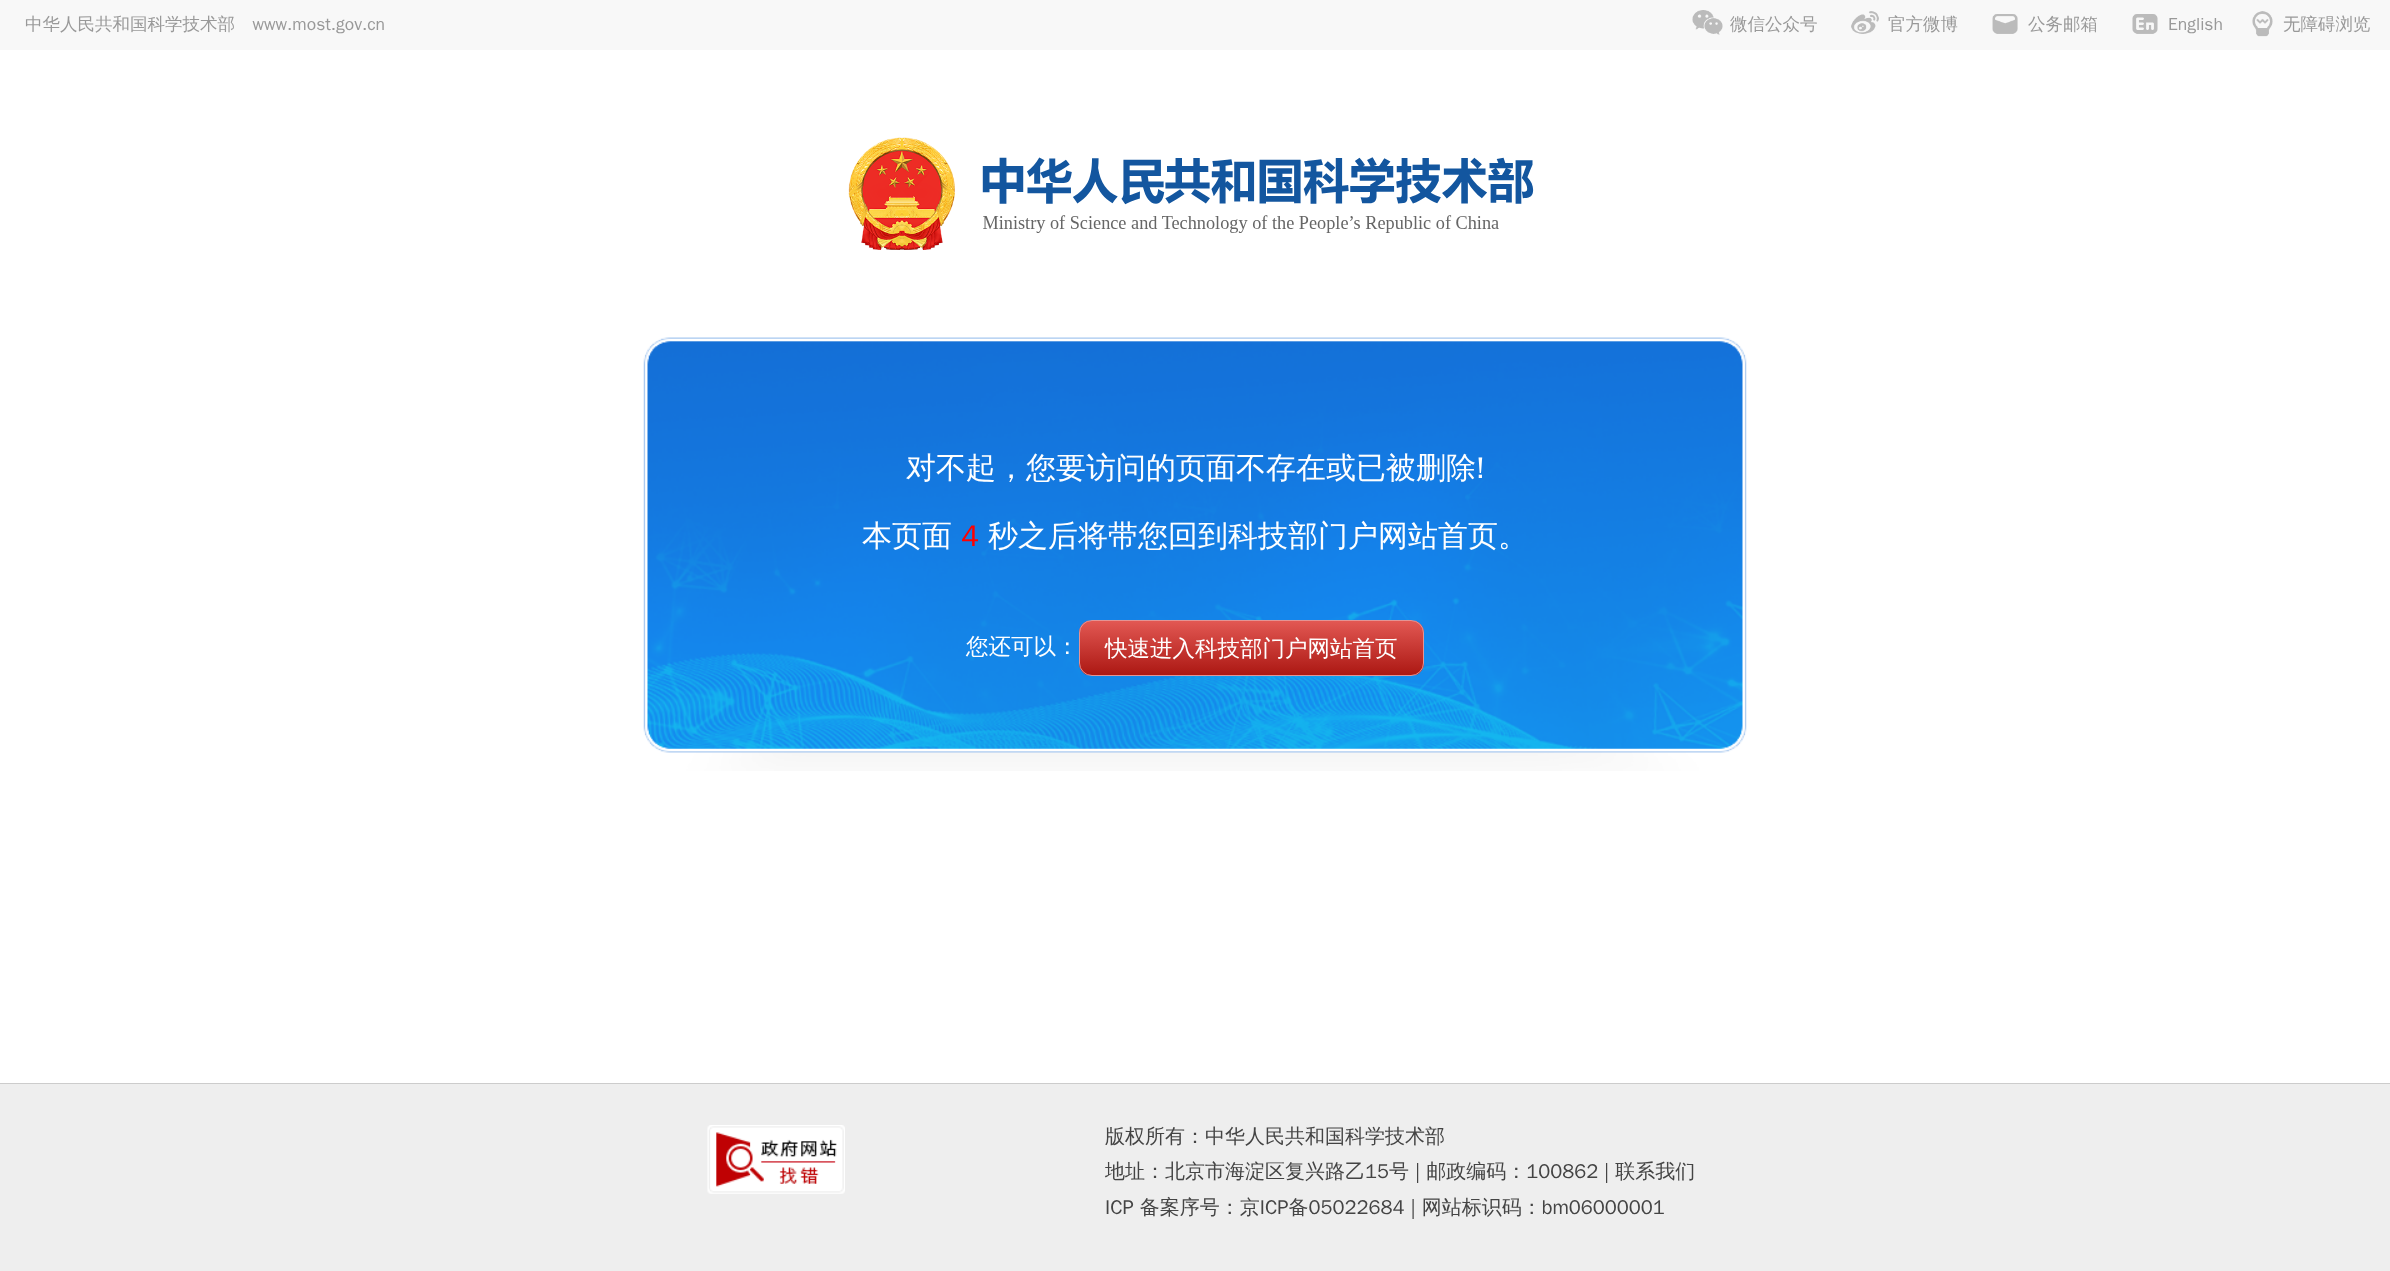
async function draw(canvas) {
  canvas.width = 2390;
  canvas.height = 1271;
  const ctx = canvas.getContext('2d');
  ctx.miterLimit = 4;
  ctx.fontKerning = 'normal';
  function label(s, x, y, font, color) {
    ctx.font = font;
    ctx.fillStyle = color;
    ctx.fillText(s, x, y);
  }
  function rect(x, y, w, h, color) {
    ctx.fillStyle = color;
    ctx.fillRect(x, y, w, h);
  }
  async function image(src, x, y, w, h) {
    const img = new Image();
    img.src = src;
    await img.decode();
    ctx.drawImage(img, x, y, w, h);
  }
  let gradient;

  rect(0, 0, 2390, 1271, '#fff');
  rect(0, 0, 2390, 50, '#f8f8f8');
  label('中华人民共和国科学技术部　www.most.gov.cn', 25, 30, '500 17.5px WenQuanYi Zen Hei', '#999');
  await image('assets/img1.png', 1692, 10, 31, 25);
  label('微信公众号', 1730, 30, '500 17.5px WenQuanYi Zen Hei', '#999');
  await image('assets/img2.png', 1851, 11, 28, 23);
  label('官方微博', 1888, 30, '500 17.5px WenQuanYi Zen Hei', '#999');
  await image('assets/img3.png', 1992, 14, 26, 20);
  label('公务邮箱', 2028, 30, '500 17.5px WenQuanYi Zen Hei', '#999');
  await image('assets/img4.png', 2132, 14, 26, 20);
  label('English', 2168, 30, '500 17.5px WenQuanYi Zen Hei', '#999');
  await image('assets/img5.png', 2252, 11, 21, 26);
  label('无障碍浏览', 2283, 30, '500 17.5px WenQuanYi Zen Hei', '#999');
  await image('assets/img6.png', 848, 137, 107, 113);
  await image('assets/img7.png', 982, 157, 552, 76);
  await image('assets/img8.png', 643, 337, 1104, 434);
  label('对不起，您要访问的页面不存在或已被删除!', 906, 478, '500 30px WenQuanYi Zen Hei', '#fff');
  label('本页面', 862, 546, '500 30px WenQuanYi Zen Hei', '#fff');
  label('4', 961, 546, '500 30px WenQuanYi Zen Hei', '#f00');
  label('秒之后将带您回到科技部门户网站首页。', 988, 546, '500 30px WenQuanYi Zen Hei', '#fff');
  label('您还可以：', 966, 654, '500 22.5px WenQuanYi Zen Hei', '#fff');
  ctx.save();
  ctx.beginPath();
  ctx.roundRect(1079, 620, 345, 56, 13);
  ctx.clip();
  gradient = ctx.createLinearGradient(1251, 621, 1251, 675);
  gradient.addColorStop(0, '#e25853');
  gradient.addColorStop(1, '#ac1813');
  ctx.fillStyle = gradient;
  ctx.fillRect(1079, 621, 345, 54);
  ctx.restore();
  ctx.beginPath();
  ctx.roundRect(1079.5, 620.5, 344, 55, 12.5);
  ctx.strokeStyle = '#e49494';
  ctx.stroke();
  label('快速进入科技部门户网站首页', 1105, 656, '500 22.5px WenQuanYi Zen Hei', '#fff');
  rect(0, 1084, 2390, 187, '#eee');
  rect(0, 1083, 2390, 1, '#ccc');
  await image('assets/img9.png', 707, 1125, 138, 69);
  label('版权所有：中华人民共和国科学技术部', 1105, 1143, '500 20px WenQuanYi Zen Hei', '#444');
  label('地址：北京市海淀区复兴路乙15号 | 邮政编码：100862 | 联系我们', 1105, 1178, '500 20px WenQuanYi Zen Hei', '#444');
  label('ICP 备案序号：京ICP备05022684 | 网站标识码：bm06000001', 1105, 1214, '500 20px WenQuanYi Zen Hei', '#444');
}

draw(document.querySelector('canvas'));
